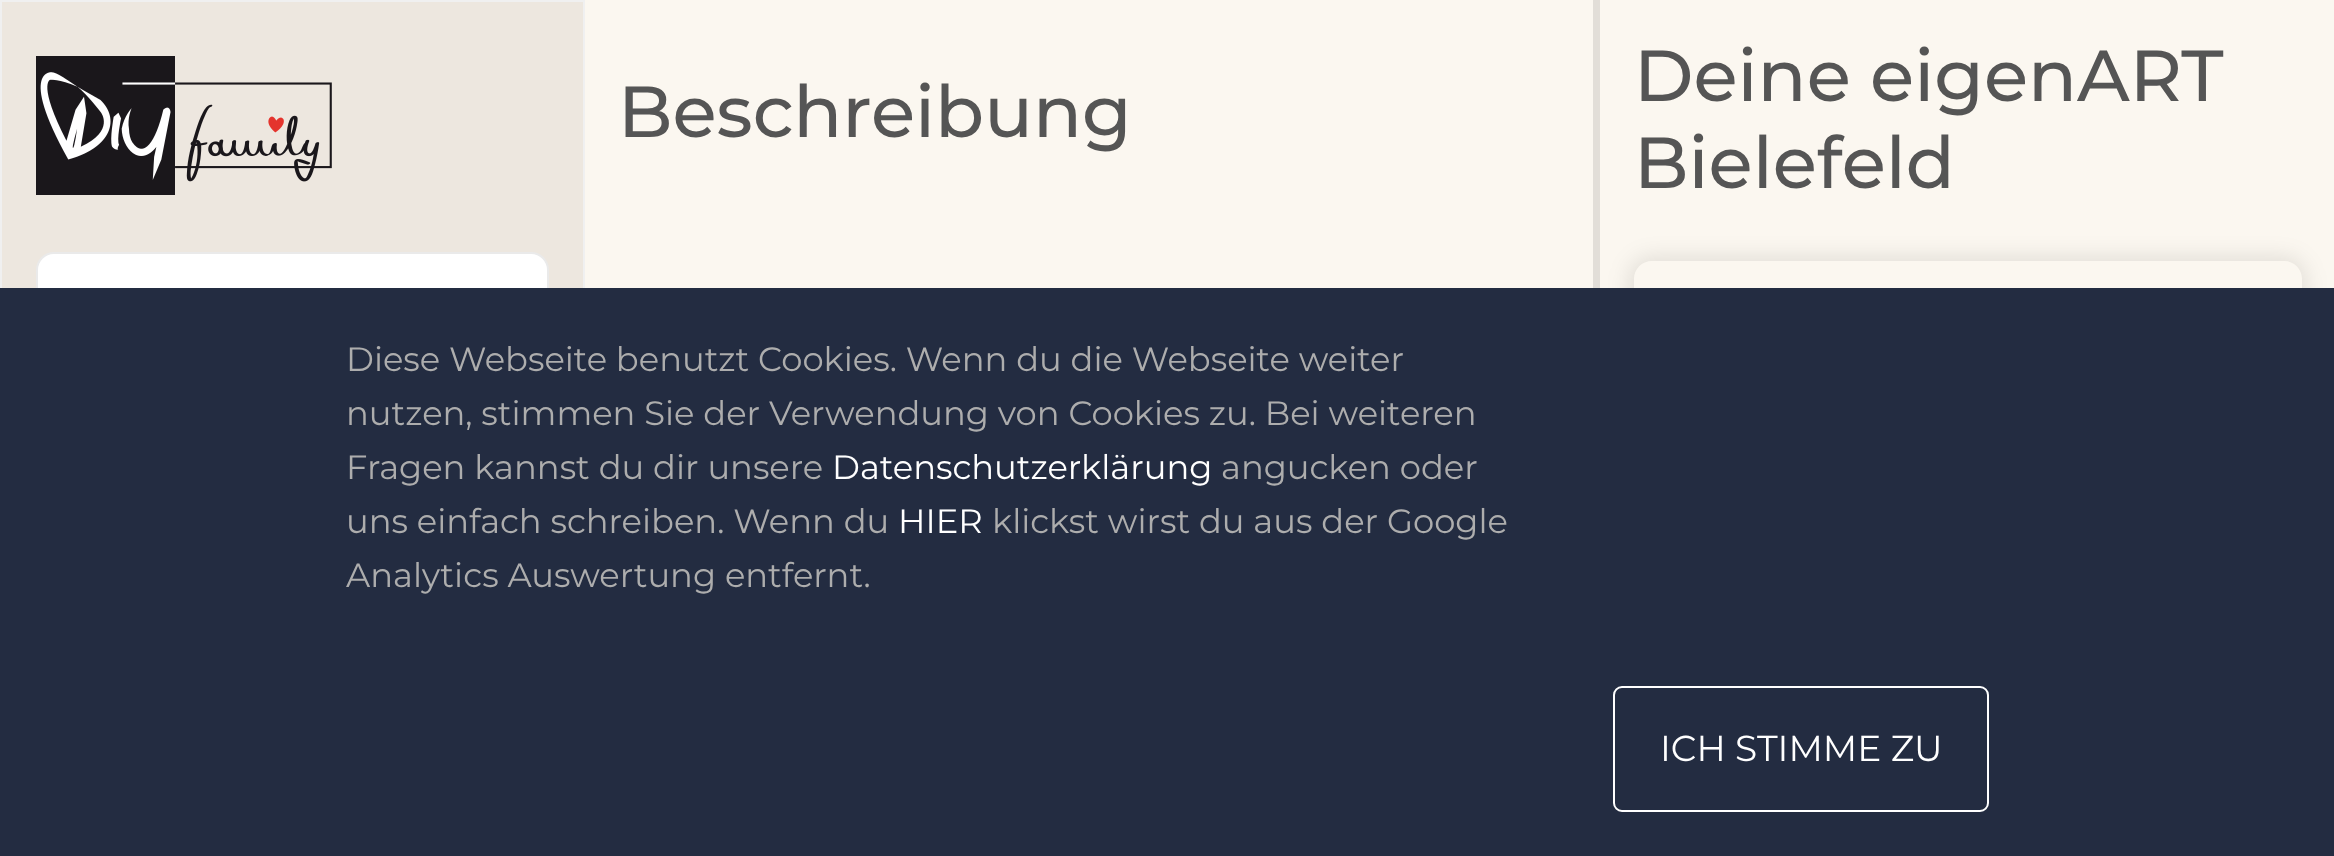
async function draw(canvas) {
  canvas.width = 2334;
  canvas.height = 856;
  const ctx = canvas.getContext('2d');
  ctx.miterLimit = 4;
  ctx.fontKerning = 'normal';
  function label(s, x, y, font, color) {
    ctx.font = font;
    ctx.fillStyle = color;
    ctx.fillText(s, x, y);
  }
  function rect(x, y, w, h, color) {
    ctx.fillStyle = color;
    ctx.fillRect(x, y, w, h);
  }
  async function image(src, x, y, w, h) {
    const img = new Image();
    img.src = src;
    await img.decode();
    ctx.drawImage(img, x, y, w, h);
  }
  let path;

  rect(0, 0, 2334, 856, '#ede7df');
  ctx.strokeStyle = '#f0f0f0';
  ctx.lineWidth = 2;
  ctx.strokeRect(1, 1, 583, 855);
  await image('assets/img1.png', 36, 56, 296, 139);
  ctx.fillStyle = '#fff';
  ctx.beginPath();
  ctx.roundRect(37, 253, 511, 111, 17);
  ctx.fill();
  ctx.strokeStyle = '#eaeaea';
  ctx.stroke();
  rect(585, 0, 1749, 288, '#fbf7f0');
  rect(1593, 0, 7, 288, '#e2ded8');
  label('Beschreibung', 618, 137, '500 72px Montserrat', '#555');
  label('Deine eigenART', 1634, 101, '500 72px Montserrat', '#555');
  label('Bielefeld', 1634, 188, '500 72px Montserrat', '#555');
  ctx.save();
  path = new Path2D('M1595 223H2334V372H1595ZM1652 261H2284C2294 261 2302 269 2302 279V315C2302 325 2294 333 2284 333H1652C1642 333 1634 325 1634 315V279C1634 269 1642 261 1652 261Z');
  ctx.clip(path, 'evenodd');
  ctx.fillStyle = '#0000001a';
  ctx.filter = 'blur(11px)';
  ctx.beginPath();
  ctx.roundRect(1629, 257, 677, 81, 23);
  ctx.fill();
  ctx.filter = 'none';
  ctx.restore();
  rect(0, 288, 2334, 568, '#232c41');
  label('Diese Webseite benutzt Cookies. Wenn du die Webseite weiter', 346, 371, '33.75px Montserrat', '#adadad');
  label('nutzen, stimmen Sie der Verwendung von Cookies zu. Bei weiteren', 346, 425, '33.75px Montserrat', '#adadad');
  label('Fragen kannst du dir unsere', 346, 479, '33.75px Montserrat', '#adadad');
  label('Datenschutzerklärung', 832, 479, '33.75px Montserrat', '#fff');
  label('angucken oder', 1221, 479, '33.75px Montserrat', '#adadad');
  label('uns einfach schreiben. Wenn du', 346, 533, '33.75px Montserrat', '#adadad');
  label('HIER', 898, 533, '33.75px Montserrat', '#fff');
  label('klickst wirst du aus der Google', 992, 533, '33.75px Montserrat', '#adadad');
  label('Analytics Auswertung entfernt.', 346, 587, '33.75px Montserrat', '#adadad');
  ctx.beginPath();
  ctx.roundRect(1614, 687, 374, 124, 8);
  ctx.strokeStyle = '#fff';
  ctx.stroke();
  label('ICH STIMME ZU', 1660, 761, '36px Montserrat', '#fff');
}

draw(document.querySelector('canvas'));
